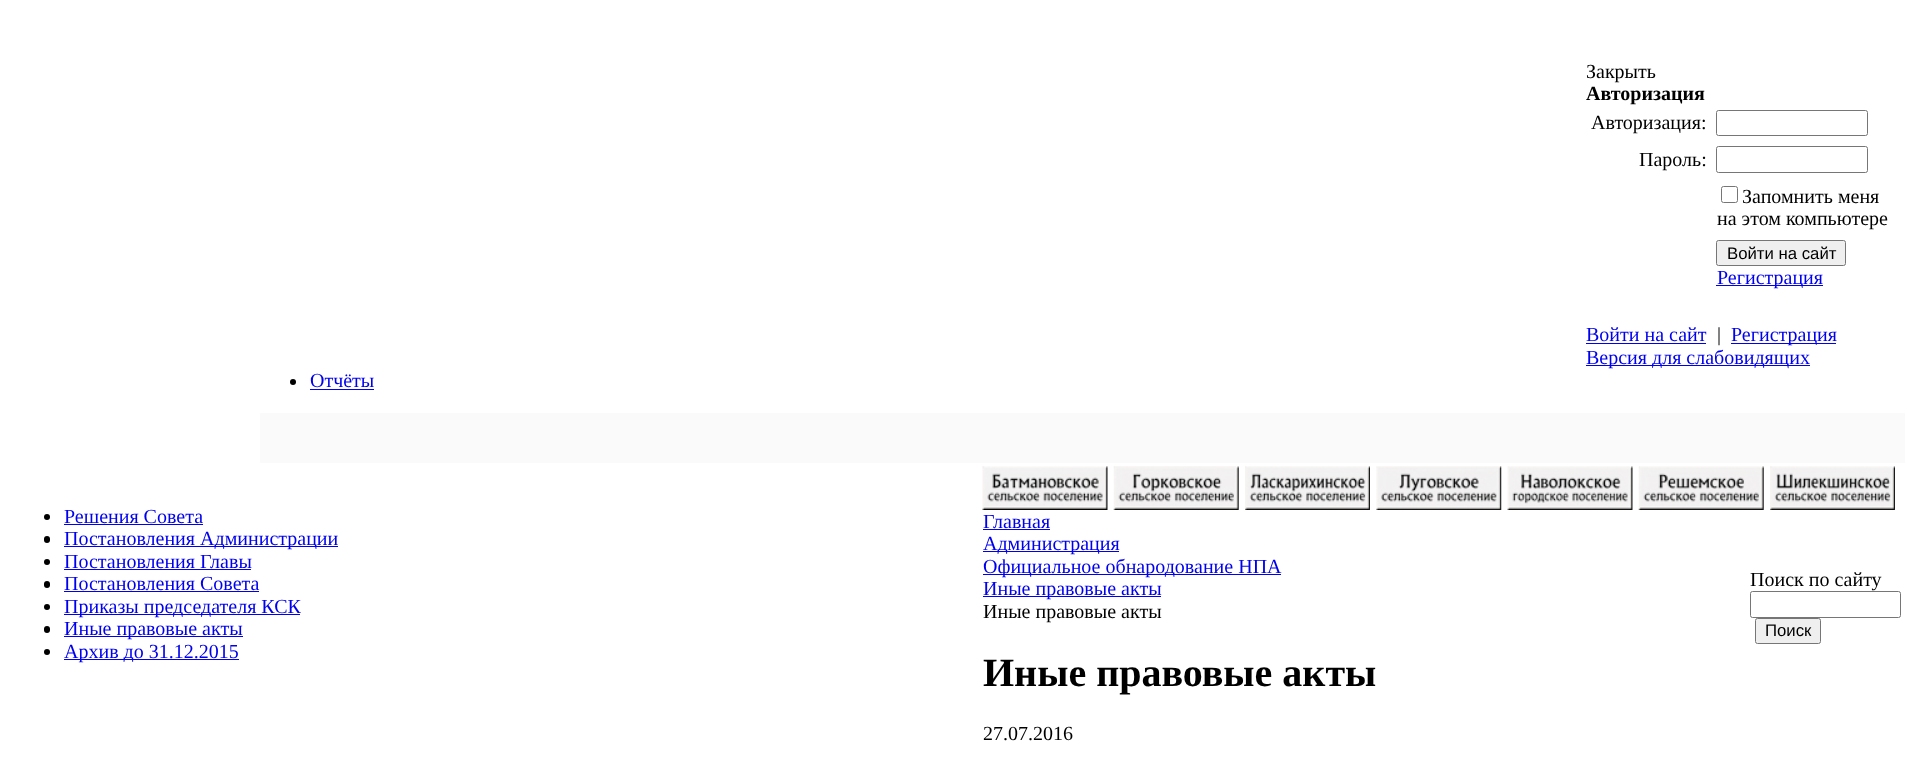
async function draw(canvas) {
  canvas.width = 1914;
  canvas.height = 771;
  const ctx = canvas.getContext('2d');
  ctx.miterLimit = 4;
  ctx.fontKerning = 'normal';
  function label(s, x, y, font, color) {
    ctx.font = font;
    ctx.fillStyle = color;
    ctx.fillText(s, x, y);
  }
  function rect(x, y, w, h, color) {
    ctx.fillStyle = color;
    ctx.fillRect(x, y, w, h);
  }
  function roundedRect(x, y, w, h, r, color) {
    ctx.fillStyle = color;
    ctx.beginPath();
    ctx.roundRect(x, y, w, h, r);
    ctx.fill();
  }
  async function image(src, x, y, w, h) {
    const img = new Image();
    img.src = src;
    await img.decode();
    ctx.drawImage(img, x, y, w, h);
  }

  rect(0, 0, 1914, 771, '#fff');
  label('Закрыть', 1586, 78, '20px Liberation Serif', '#000');
  label('Авторизация', 1586, 100, 'bold 20px Liberation Serif', '#000');
  label('Авторизация:', 1591, 129, '20px Liberation Serif', '#000');
  ctx.beginPath();
  ctx.roundRect(1716.5, 110.5, 151, 25, 2);
  ctx.strokeStyle = '#767676';
  ctx.stroke();
  label('Пароль:', 1639, 166, '20px Liberation Serif', '#000');
  ctx.beginPath();
  ctx.roundRect(1716.5, 146.5, 151, 26, 2);
  ctx.stroke();
  ctx.beginPath();
  ctx.roundRect(1721.5, 186.5, 16, 16, 2);
  ctx.stroke();
  label('Запомнить меня', 1742, 203, '20px Liberation Serif', '#000');
  label('на этом компьютере', 1717, 225, '20px Liberation Serif', '#000');
  ctx.fillStyle = '#efefef';
  ctx.beginPath();
  ctx.roundRect(1716.5, 240.5, 129, 25, 2);
  ctx.fill();
  ctx.stroke();
  label('Войти на сайт', 1727, 259, '16.75px Liberation Sans', '#000');
  rect(1716, 285, 107, 1, '#00e');
  label('Регистрация', 1717, 284, '20px Liberation Serif', '#00e');
  label('Войти на сайт', 1586, 341, '20px Liberation Serif', '#00e');
  rect(1586, 343, 120, 1, '#00e');
  label('|', 1717, 341, '20px Liberation Serif', '#000');
  rect(1731, 343, 105, 1, '#00e');
  label('Регистрация', 1731, 341, '20px Liberation Serif', '#00e');
  rect(1586, 365, 224, 1, '#00e');
  label('Версия для слабовидящих', 1586, 364, '20px Liberation Serif', '#00e');
  ctx.fillStyle = '#000';
  ctx.beginPath();
  ctx.arc(293, 382, 3, 0, 2 * Math.PI);
  ctx.fill();
  label('Отчёты', 310, 387, '20px Liberation Serif', '#00e');
  rect(310, 389, 64, 1, '#00e');
  rect(260, 413, 1645, 50, '#fafafa');
  ctx.fillStyle = '#000';
  ctx.beginPath();
  ctx.arc(47, 517, 3, 0, 2 * Math.PI);
  ctx.fill();
  label('Решения Совета', 64, 523, '20px Liberation Serif', '#00e');
  rect(64, 524, 139, 1, '#00e');
  roundedRect(44, 536, 6, 7, 3, '#000');
  rect(64, 546, 274, 1, '#00e');
  label('Постановления Администрации', 64, 545, '20px Liberation Serif', '#00e');
  ctx.fillStyle = '#000';
  ctx.beginPath();
  ctx.arc(47, 562, 3, 0, 2 * Math.PI);
  ctx.fill();
  label('Постановления Главы', 64, 568, '20px Liberation Serif', '#00e');
  rect(64, 569, 187, 1, '#00e');
  roundedRect(44, 581, 6, 7, 3, '#000');
  label('Постановления Совета', 64, 590, '20px Liberation Serif', '#00e');
  rect(64, 591, 195, 1, '#00e');
  ctx.fillStyle = '#000';
  ctx.beginPath();
  ctx.arc(47, 607, 3, 0, 2 * Math.PI);
  ctx.fill();
  rect(64, 614, 236, 1, '#00e');
  label('Приказы председателя КСК', 64, 613, '20px Liberation Serif', '#00e');
  roundedRect(44, 626, 6, 7, 3, '#000');
  rect(64, 636, 179, 1, '#00e');
  label('Иные правовые акты', 64, 635, '20px Liberation Serif', '#00e');
  ctx.fillStyle = '#000';
  ctx.beginPath();
  ctx.arc(47, 652, 3, 0, 2 * Math.PI);
  ctx.fill();
  rect(64, 659, 175, 1, '#00e');
  label('Архив до 31.12.2015', 64, 658, '20px Liberation Serif', '#00e');
  await image('assets/img1.png', 982, 466, 126, 44);
  await image('assets/img2.png', 1113, 466, 126, 44);
  await image('assets/img3.png', 1245, 466, 125, 44);
  await image('assets/img4.png', 1376, 466, 126, 44);
  await image('assets/img5.png', 1507, 466, 126, 44);
  await image('assets/img6.png', 1638, 466, 126, 44);
  await image('assets/img7.png', 1770, 466, 125, 44);
  label('Главная', 983, 528, '20px Liberation Serif', '#00e');
  rect(983, 529, 67, 1, '#00e');
  rect(983, 551, 136, 1, '#00e');
  label('Администрация', 983, 550, '20px Liberation Serif', '#00e');
  rect(983, 574, 298, 1, '#00e');
  label('Официальное обнародование НПА', 983, 573, '20px Liberation Serif', '#00e');
  rect(983, 596, 178, 1, '#00e');
  label('Иные правовые акты', 983, 595, '20px Liberation Serif', '#00e');
  label('Иные правовые акты', 983, 618, '20px Liberation Serif', '#000');
  label('Иные правовые акты', 983, 686, 'bold 40px Liberation Serif', '#000');
  label('Поиск по сайту', 1750, 586, '20px Liberation Serif', '#000');
  ctx.beginPath();
  ctx.roundRect(1750.5, 591.5, 150, 26, 2);
  ctx.stroke();
  ctx.fillStyle = '#efefef';
  ctx.beginPath();
  ctx.roundRect(1755.5, 618.5, 65, 25, 2);
  ctx.fill();
  ctx.stroke();
  label('Поиск', 1765, 636, '16.75px Liberation Sans', '#000');
  label('27.07.2016', 983, 740, '20px Liberation Serif', '#000');
}

draw(document.querySelector('canvas'));
